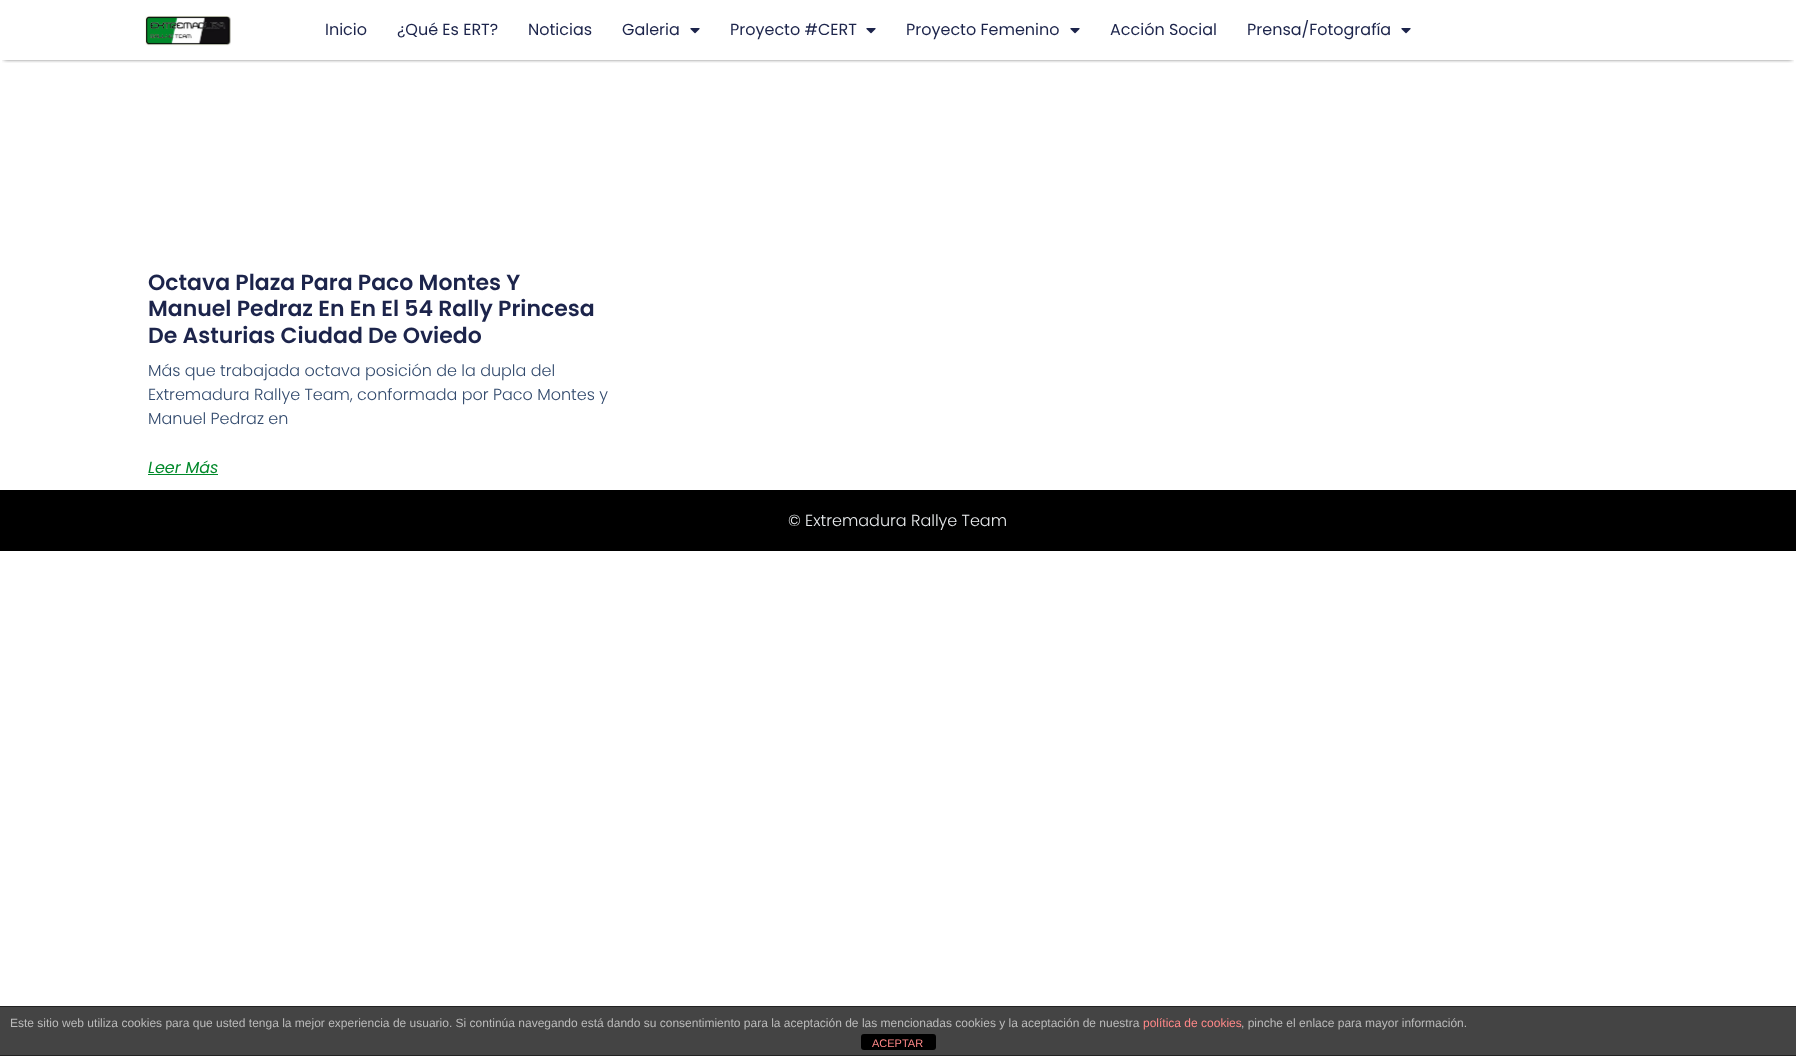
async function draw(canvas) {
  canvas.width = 1796;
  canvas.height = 1056;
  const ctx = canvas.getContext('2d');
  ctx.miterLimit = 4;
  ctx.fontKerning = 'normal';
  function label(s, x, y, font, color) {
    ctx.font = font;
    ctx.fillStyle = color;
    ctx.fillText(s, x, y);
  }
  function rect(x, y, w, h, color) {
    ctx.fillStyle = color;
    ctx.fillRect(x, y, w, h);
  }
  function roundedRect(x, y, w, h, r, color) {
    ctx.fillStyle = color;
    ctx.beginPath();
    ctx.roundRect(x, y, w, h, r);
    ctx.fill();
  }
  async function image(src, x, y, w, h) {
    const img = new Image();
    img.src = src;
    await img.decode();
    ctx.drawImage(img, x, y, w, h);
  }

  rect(0, 0, 1796, 1056, '#fff');
  ctx.save();
  ctx.beginPath();
  ctx.rect(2, 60, 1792, 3);
  ctx.clip();
  ctx.fillStyle = '#000000cc';
  ctx.filter = 'blur(2px)';
  ctx.beginPath();
  ctx.rect(4, 7, 1788, 52);
  ctx.fill();
  ctx.filter = 'none';
  ctx.restore();
  await image('assets/img1.png', 145, 15, 86, 31);
  label('Inicio', 325, 35, '16px Poppins', '#1c244b');
  label('¿Qué Es ERT?', 397, 35, '16px Poppins', '#1c244b');
  label('Noticias', 528, 35, '16px Poppins', '#1c244b');
  label('Galeria', 622, 35, '16px Poppins', '#1c244b');
  await image('assets/img2.png', 690, 28, 10, 6);
  label('Proyecto #CERT', 730, 35, '16px Poppins', '#1c244b');
  await image('assets/img2.png', 866, 28, 10, 6);
  label('Proyecto Femenino', 906, 35, '16px Poppins', '#1c244b');
  await image('assets/img2.png', 1070, 28, 10, 6);
  label('Acción Social', 1110, 35, '16px Poppins', '#1c244b');
  label('Prensa/Fotografía', 1247, 35, '16px Poppins', '#1c244b');
  await image('assets/img2.png', 1401, 28, 10, 6);
  label('Octava Plaza Para Paco Montes Y', 148, 290, '600 22px Poppins', '#1c244b');
  label('Manuel Pedraz En En El 54 Rally Princesa', 148, 316, '600 22px Poppins', '#1c244b');
  label('De Asturias Ciudad De Oviedo', 148, 343, '600 22px Poppins', '#1c244b');
  label('Más que trabajada octava posición de la dupla del', 148, 376, '300 16px Poppins', '#324a6d');
  label('Extremadura Rallye Team, conformada por Paco Montes y', 148, 400, '300 16px Poppins', '#324a6d');
  label('Manuel Pedraz en', 148, 424, '300 16px Poppins', '#324a6d');
  label('Leer Más', 148, 473, 'italic 16px Poppins', '#00892a');
  rect(148, 474, 70, 1, '#00892a');
  rect(0, 490, 1796, 61, '#000');
  label('© Extremadura Rallye Team', 788, 526, '300 16px Poppins', '#e8ebed');
  rect(0, 1007, 1796, 48, '#444');
  rect(0, 1006, 1796, 1, '#222');
  rect(0, 1055, 1796, 1, '#222');
  label('Este sitio web utiliza cookies para que usted tenga la mejor experiencia de usuario. Si continúa navegando está dando su consentimiento para la aceptación de las mencionadas cookies y la aceptación de nuestra', 10, 1027, '12px Liberation Sans', '#bbb');
  label('política de cookies', 1143, 1027, '12px Liberation Sans', '#f88');
  label(', pinche el enlace para mayor información.', 1241, 1027, '12px Liberation Sans', '#bbb');
  roundedRect(861, 1034, 75, 16, 3, '#000');
  label('ACEPTAR', 872, 1047, '11px Liberation Sans', '#f88');
}

draw(document.querySelector('canvas'));
